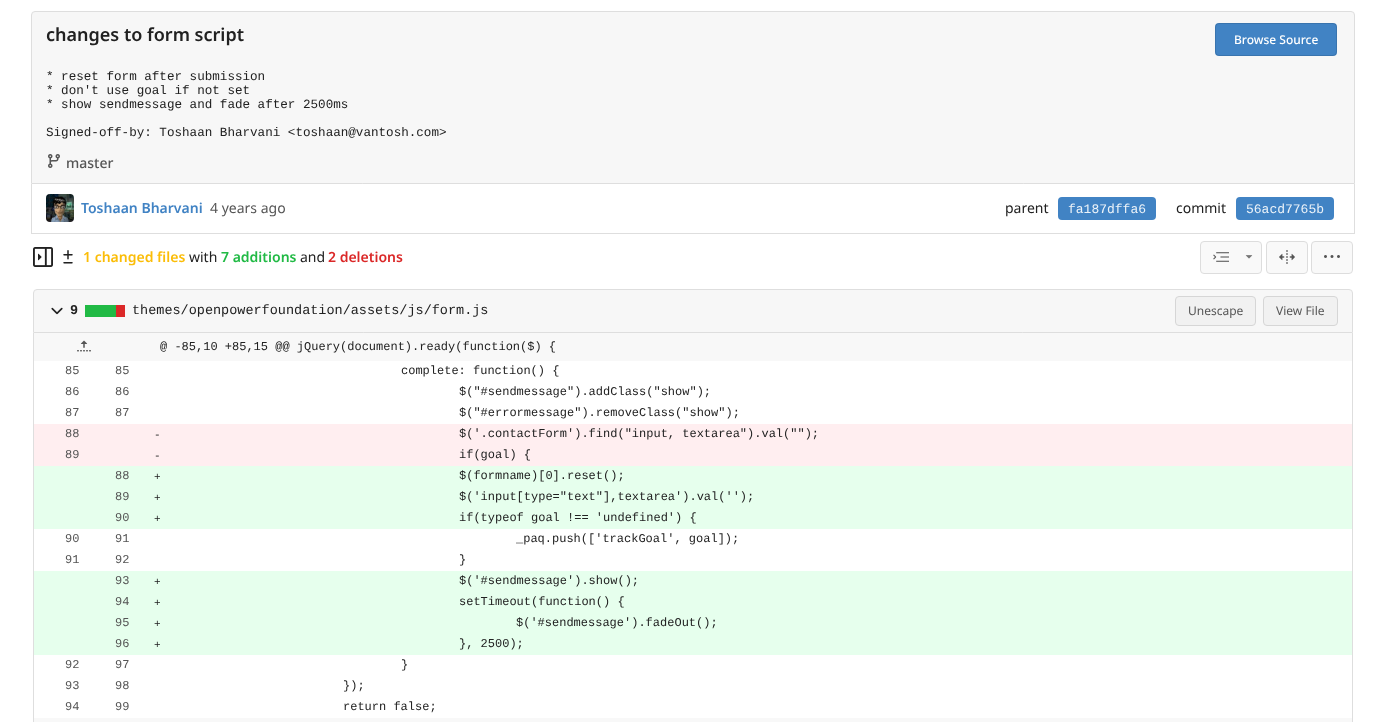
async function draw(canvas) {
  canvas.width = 1386;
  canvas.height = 722;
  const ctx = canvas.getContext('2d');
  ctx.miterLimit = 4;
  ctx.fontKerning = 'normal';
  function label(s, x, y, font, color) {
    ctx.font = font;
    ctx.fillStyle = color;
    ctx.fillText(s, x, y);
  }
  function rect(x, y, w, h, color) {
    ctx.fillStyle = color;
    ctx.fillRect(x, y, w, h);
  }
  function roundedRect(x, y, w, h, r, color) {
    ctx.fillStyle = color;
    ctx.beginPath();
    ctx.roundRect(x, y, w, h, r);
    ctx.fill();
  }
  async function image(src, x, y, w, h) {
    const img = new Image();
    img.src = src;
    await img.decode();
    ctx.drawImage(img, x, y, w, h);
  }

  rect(0, 0, 1386, 722, '#fff');
  ctx.fillStyle = '#f7f7f7';
  ctx.beginPath();
  ctx.roundRect(31.5, 11.5, 1323, 172, [3.5, 3.5, 0, 0]);
  ctx.fill();
  ctx.strokeStyle = '#dedede';
  ctx.stroke();
  label('changes to form script', 46, 41, '600 18px Noto Sans', '#212121');
  roundedRect(1215, 23, 122, 33, 4, '#4183c4');
  ctx.beginPath();
  ctx.roundRect(1215.5, 23.5, 121, 32, 3.5);
  ctx.strokeStyle = '#0000001c';
  ctx.stroke();
  label('Browse Source', 1234, 44, '500 12px Noto Sans', '#fff');
  label('* reset form after submission', 46, 80, '12.6px Liberation Mono', '#212121');
  label('* don\'t use goal if not set', 46, 94, '12.6px Liberation Mono', '#212121');
  label('* show sendmessage and fade after 2500ms', 46, 108, '12.6px Liberation Mono', '#212121');
  label('Signed-off-by: Toshaan Bharvani <toshaan@vantosh.com>', 46, 136, '12.6px Liberation Mono', '#212121');
  await image('assets/img1.png', 48, 154, 12, 14);
  label('master', 66, 168, '500 14px Noto Sans', '#555');
  rect(1354, 184, 1, 50, '#dedede');
  rect(31, 233, 1324, 1, '#dedede');
  rect(31, 184, 1, 50, '#dedede');
  await image('assets/img2.png', 46, 194, 28, 28);
  label('Toshaan Bharvani', 81, 213, '600 14px Noto Sans', '#4183c4');
  label('4 years ago', 210, 213, '14px Noto Sans', '#555');
  label('parent', 1005, 213, '14px Noto Sans', '#212121');
  roundedRect(1058, 197, 98, 23, 4, '#4183c4');
  label('fa187dffa6', 1068, 213, '13px Liberation Mono', '#ecf3f9');
  label('commit', 1176, 213, '14px Noto Sans', '#212121');
  roundedRect(1236, 197, 98, 23, 4, '#4183c4');
  label('56acd7765b', 1246, 213, '13px Liberation Mono', '#ecf3f9');
  await image('assets/img3.png', 33, 247, 20, 20);
  await image('assets/img4.png', 63, 250, 10, 14);
  label('1 changed files', 83, 262, '600 14px Noto Sans', '#fbbd08');
  label('with', 189, 262, '14px Noto Sans', '#212121');
  label('7 additions', 221, 262, '600 14px Noto Sans', '#21ba45');
  label('and', 300, 262, '14px Noto Sans', '#212121');
  label('2 deletions', 328, 262, '600 14px Noto Sans', '#db2828');
  ctx.fillStyle = '#f9f9f9';
  ctx.beginPath();
  ctx.roundRect(1200.5, 241.5, 61, 32, 3.5);
  ctx.fill();
  ctx.strokeStyle = '#ddd';
  ctx.stroke();
  await image('assets/img5.png', 1213, 252, 16, 10);
  await image('assets/img6.png', 1245, 255, 8, 4);
  ctx.beginPath();
  ctx.roundRect(1266.5, 241.5, 41, 32, 3.5);
  ctx.fill();
  ctx.stroke();
  await image('assets/img7.png', 1279, 250, 16, 14);
  ctx.beginPath();
  ctx.roundRect(1311.5, 241.5, 41, 32, 3.5);
  ctx.fill();
  ctx.stroke();
  await image('assets/img8.png', 1324, 255, 16, 3);
  ctx.fillStyle = '#f7f7f7';
  ctx.beginPath();
  ctx.roundRect(33.5, 289.5, 1319, 43, [3.5, 3.5, 0, 0]);
  ctx.fill();
  ctx.strokeStyle = '#dedede';
  ctx.stroke();
  await image('assets/img9.png', 51, 307, 12, 8);
  label('9', 70, 314, 'bold 13.5px Liberation Mono', '#212121');
  rect(116, 305, 9, 12, '#db2828');
  rect(85, 305, 31, 12, '#21ba45');
  label('themes/openpowerfoundation/assets/js/form.js', 132, 314, '13.5px Liberation Mono', '#212121');
  ctx.fillStyle = '#f1f1f1';
  ctx.beginPath();
  ctx.roundRect(1175.5, 296.5, 80, 29, 3.5);
  ctx.fill();
  ctx.strokeStyle = '#d6d6d6';
  ctx.stroke();
  label('Unescape', 1188, 315, '12px Noto Sans', '#555');
  ctx.fillStyle = '#f1f1f1';
  ctx.beginPath();
  ctx.roundRect(1263.5, 296.5, 74, 29, 3.5);
  ctx.fill();
  ctx.stroke();
  label('View File', 1276, 315, '12px Noto Sans', '#555');
  rect(1352, 333, 1, 389, '#dedede');
  rect(33, 333, 1, 389, '#dedede');
  rect(34, 333, 1318, 28, '#f8f8f8');
  await image('assets/img10.png', 77, 340, 14, 12);
  label('@ -85,10 +85,15 @@ jQuery(document).ready(function($) {', 160, 350, '12px Liberation Mono', '#212121');
  label('85', 65, 374, '12px Liberation Mono', '#555');
  label('85', 115, 374, '12px Liberation Mono', '#555');
  label('complete: function() {', 401, 374, '12px Liberation Mono', '#212121');
  label('86', 65, 395, '12px Liberation Mono', '#555');
  label('86', 115, 395, '12px Liberation Mono', '#555');
  label('$("#sendmessage").addClass("show");', 459, 395, '12px Liberation Mono', '#212121');
  label('87', 65, 416, '12px Liberation Mono', '#555');
  label('87', 115, 416, '12px Liberation Mono', '#555');
  label('$("#errormessage").removeClass("show");', 459, 416, '12px Liberation Mono', '#212121');
  rect(34, 424, 1318, 42, '#ffeef0');
  label('88', 65, 437, '12px Liberation Mono', '#555');
  label('-', 154, 438, '11px Liberation Mono', '#212121');
  label('$(\'.contactForm\').find("input, textarea").val("");', 459, 437, '12px Liberation Mono', '#212121');
  label('89', 65, 458, '12px Liberation Mono', '#555');
  label('-', 154, 459, '11px Liberation Mono', '#212121');
  label('if(goal) {', 459, 458, '12px Liberation Mono', '#212121');
  rect(34, 466, 1318, 63, '#e6ffed');
  label('88', 115, 479, '12px Liberation Mono', '#555');
  label('+', 154, 480, '11px Liberation Mono', '#212121');
  label('$(formname)[0].reset();', 459, 479, '12px Liberation Mono', '#212121');
  label('89', 115, 500, '12px Liberation Mono', '#555');
  label('+', 154, 501, '11px Liberation Mono', '#212121');
  label('$(\'input[type="text"],textarea\').val(\'\');', 459, 500, '12px Liberation Mono', '#212121');
  label('90', 115, 521, '12px Liberation Mono', '#555');
  label('+', 154, 522, '11px Liberation Mono', '#212121');
  label('if(typeof goal !== \'undefined\') {', 459, 521, '12px Liberation Mono', '#212121');
  label('90', 65, 542, '12px Liberation Mono', '#555');
  label('91', 115, 542, '12px Liberation Mono', '#555');
  label('_paq.push([\'trackGoal\', goal]);', 516, 542, '12px Liberation Mono', '#212121');
  label('91', 65, 563, '12px Liberation Mono', '#555');
  label('92', 115, 563, '12px Liberation Mono', '#555');
  label('}', 459, 563, '12px Liberation Mono', '#212121');
  rect(34, 571, 1318, 84, '#e6ffed');
  label('93', 115, 584, '12px Liberation Mono', '#555');
  label('+', 154, 585, '11px Liberation Mono', '#212121');
  label('$(\'#sendmessage\').show();', 459, 584, '12px Liberation Mono', '#212121');
  label('94', 115, 605, '12px Liberation Mono', '#555');
  label('+', 154, 606, '11px Liberation Mono', '#212121');
  label('setTimeout(function() {', 459, 605, '12px Liberation Mono', '#212121');
  label('95', 115, 626, '12px Liberation Mono', '#555');
  label('+', 154, 627, '11px Liberation Mono', '#212121');
  label('$(\'#sendmessage\').fadeOut();', 516, 626, '12px Liberation Mono', '#212121');
  label('96', 115, 647, '12px Liberation Mono', '#555');
  label('+', 154, 648, '11px Liberation Mono', '#212121');
  label('}, 2500);', 459, 647, '12px Liberation Mono', '#212121');
  label('92', 65, 668, '12px Liberation Mono', '#555');
  label('97', 115, 668, '12px Liberation Mono', '#555');
  label('}', 401, 668, '12px Liberation Mono', '#212121');
  label('93', 65, 689, '12px Liberation Mono', '#555');
  label('98', 115, 689, '12px Liberation Mono', '#555');
  label('});', 343, 689, '12px Liberation Mono', '#212121');
  label('94', 65, 710, '12px Liberation Mono', '#555');
  label('99', 115, 710, '12px Liberation Mono', '#555');
  label('return false;', 343, 710, '12px Liberation Mono', '#212121');
  rect(34, 718, 1318, 4, '#f8f8f8');
}

draw(document.querySelector('canvas'));
